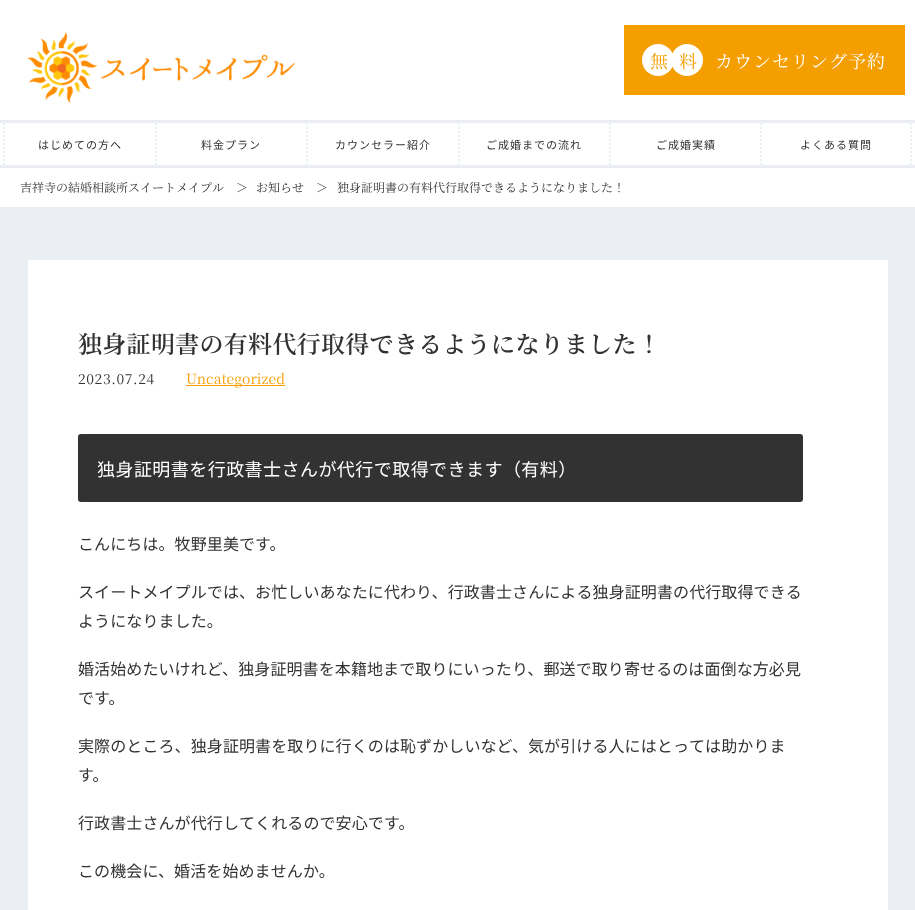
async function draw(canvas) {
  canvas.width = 915;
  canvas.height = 910;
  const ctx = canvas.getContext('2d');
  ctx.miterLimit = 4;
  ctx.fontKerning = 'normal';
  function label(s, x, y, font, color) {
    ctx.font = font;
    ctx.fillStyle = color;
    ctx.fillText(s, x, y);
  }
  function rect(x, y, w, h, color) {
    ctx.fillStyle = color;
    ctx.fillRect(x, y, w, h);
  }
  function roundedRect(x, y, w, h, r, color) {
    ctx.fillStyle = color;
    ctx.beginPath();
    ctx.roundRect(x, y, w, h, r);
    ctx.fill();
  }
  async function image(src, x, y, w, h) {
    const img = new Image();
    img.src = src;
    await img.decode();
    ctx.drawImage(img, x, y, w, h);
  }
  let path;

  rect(0, 0, 915, 910, '#fff');
  await image('assets/img1.png', 27, 32, 268, 71);
  rect(624, 25, 281, 70, '#f49e00');
  ctx.fillStyle = '#fff';
  ctx.beginPath();
  ctx.arc(658, 60, 16, 0, 2 * Math.PI);
  ctx.fill();
  ctx.letterSpacing = '1px';
  label('無', 650, 68, '18px Noto Serif JP', '#f49e00');
  ctx.fillStyle = '#fff';
  ctx.beginPath();
  ctx.arc(687, 60, 16, 0, 2 * Math.PI);
  ctx.fill();
  label('料', 679, 68, '18px Noto Serif JP', '#f49e00');
  label('カウンセリング予約', 715, 68, '18px Noto Serif JP', '#fff');
  rect(0, 120, 915, 3, '#ebeef3');
  rect(0, 165, 915, 3, '#ebeef3');
  ctx.save();
  ctx.beginPath();
  ctx.rect(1, 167, 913, 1);
  ctx.clip();
  ctx.fillStyle = '#86868629';
  ctx.filter = 'blur(3px)';
  ctx.beginPath();
  ctx.rect(0, 170, 915, 39);
  ctx.fill();
  ctx.filter = 'none';
  ctx.restore();
  path = new Path2D('M4 123V165');
  ctx.strokeStyle = '#ebeef3';
  ctx.lineWidth = 2;
  ctx.setLineDash([2, 2]);
  ctx.stroke(path);
  label('はじめての方へ', 38, 149, '11px Noto Sans JP', '#323232');
  path = new Path2D('M156 123V165');
  ctx.stroke(path);
  label('料金プラン', 201, 149, '11px Noto Sans JP', '#323232');
  path = new Path2D('M307 123V165');
  ctx.stroke(path);
  label('カウンセラー紹介', 335, 149, '11px Noto Sans JP', '#323232');
  path = new Path2D('M459 123V165');
  ctx.stroke(path);
  label('ご成婚までの流れ', 486, 149, '11px Noto Sans JP', '#323232');
  path = new Path2D('M610 123V165');
  ctx.stroke(path);
  label('ご成婚実績', 656, 149, '11px Noto Sans JP', '#323232');
  path = new Path2D('M911 123V165');
  ctx.stroke(path);
  path = new Path2D('M761 123V165');
  ctx.stroke(path);
  label('よくある質問', 800, 149, '11px Noto Sans JP', '#323232');
  ctx.letterSpacing = '0px';
  label('吉祥寺の結婚相談所スイートメイプル', 20, 192, '12px Noto Serif JP', '#323232');
  label('＞', 236, 192, '12px Noto Serif JP', '#323232');
  label('お知らせ', 256, 192, '12px Noto Serif JP', '#323232');
  label('＞', 316, 192, '12px Noto Serif JP', '#323232');
  label('独身証明書の有料代行取得できるようになりました！', 337, 192, '12px Noto Serif JP', '#323232');
  rect(0, 207, 915, 703, '#ebeef3');
  rect(28, 260, 860, 650, '#fff');
  ctx.letterSpacing = '0.3px';
  label('独身証明書の有料代行取得できるようになりました！', 78, 353, '600 24px Noto Serif JP', '#323232');
  ctx.letterSpacing = '0.6px';
  label('2023.07.24', 78, 384, '14px Noto Serif JP', '#323232');
  rect(186, 385, 99, 1, '#f49e00');
  ctx.letterSpacing = '0px';
  label('Uncategorized', 186, 384, '14px Noto Serif JP', '#f49e00');
  roundedRect(78, 434, 725, 68, 3, '#323232');
  ctx.letterSpacing = '0.45px';
  label('独身証明書を行政書士さんが代行で取得できます（有料）', 97, 476, '18px Noto Sans JP', '#fff');
  ctx.letterSpacing = '0.1px';
  label('こんにちは。牧野里美です。', 78, 550, '16px Noto Sans JP', '#323232');
  label('スイートメイプルでは、お忙しいあなたに代わり、行政書士さんによる独身証明書の代行取得できる', 78, 598, '16px Noto Sans JP', '#323232');
  label('ようになりました。', 78, 627, '16px Noto Sans JP', '#323232');
  label('婚活始めたいけれど、独身証明書を本籍地まで取りにいったり、郵送で取り寄せるのは面倒な方必見', 78, 675, '16px Noto Sans JP', '#323232');
  label('です。', 78, 704, '16px Noto Sans JP', '#323232');
  label('実際のところ、独身証明書を取りに行くのは恥ずかしいなど、気が引ける人にはとっては助かりま', 78, 752, '16px Noto Sans JP', '#323232');
  label('す。', 78, 781, '16px Noto Sans JP', '#323232');
  label('行政書士さんが代行してくれるので安心です。', 78, 829, '16px Noto Sans JP', '#323232');
  label('この機会に、婚活を始めませんか。', 78, 877, '16px Noto Sans JP', '#323232');
}

draw(document.querySelector('canvas'));
